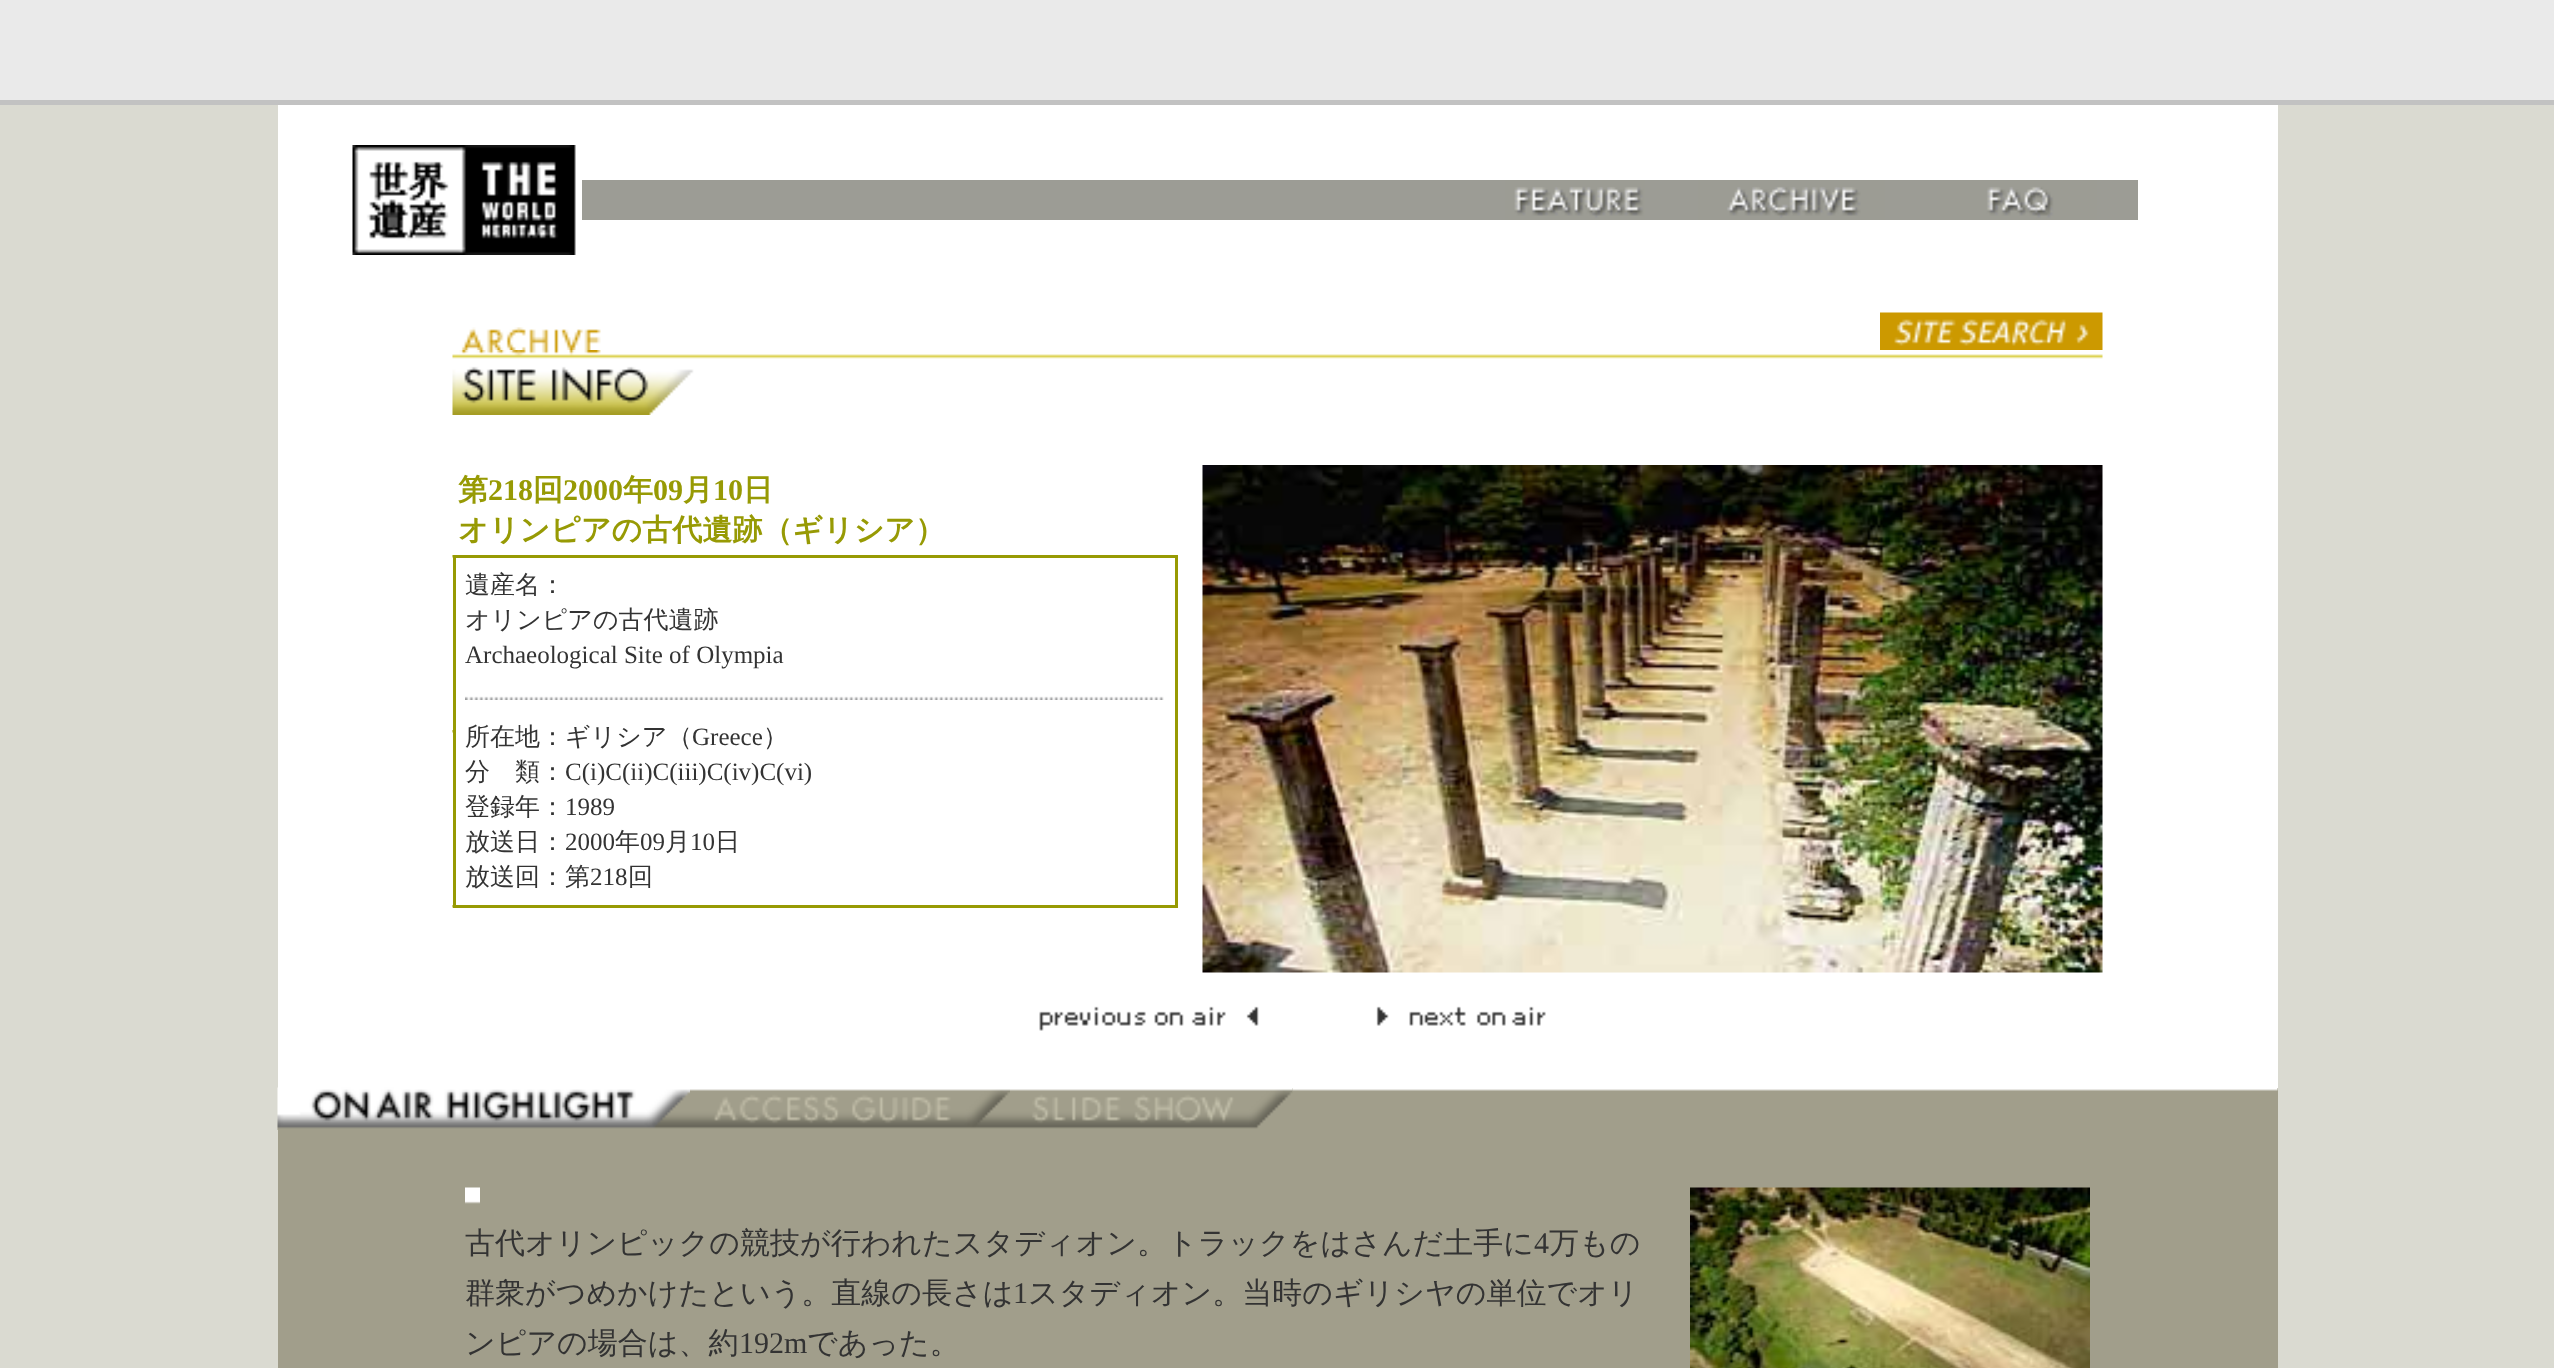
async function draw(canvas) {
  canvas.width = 2554;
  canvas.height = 1368;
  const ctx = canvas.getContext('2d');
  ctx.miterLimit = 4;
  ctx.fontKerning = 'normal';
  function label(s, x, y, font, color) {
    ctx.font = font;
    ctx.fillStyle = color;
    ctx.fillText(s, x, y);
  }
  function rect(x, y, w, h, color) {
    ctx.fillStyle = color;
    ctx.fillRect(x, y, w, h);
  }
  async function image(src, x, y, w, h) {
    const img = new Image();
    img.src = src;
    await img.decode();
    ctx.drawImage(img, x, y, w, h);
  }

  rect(0, 0, 2554, 1368, '#dadad1');
  rect(0, 0, 2554, 100, '#eaeaea');
  rect(0, 100, 2554, 5, '#c2c2c2');
  rect(278, 1088, 2000, 280, '#a19e8b');
  rect(278, 105, 2000, 983, '#fff');
  await image('assets/img1.png', 352, 145, 224, 110);
  rect(582, 180, 923, 40, '#9c9c95');
  await image('assets/img2.png', 1505, 180, 140, 40);
  rect(1645, 180, 53, 40, '#9c9c95');
  await image('assets/img3.png', 1698, 180, 187, 40);
  rect(1885, 180, 55, 40, '#9c9c95');
  await image('assets/img4.png', 1940, 180, 157, 40);
  rect(2097, 180, 41, 40, '#9c9c95');
  await image('assets/img5.png', 461, 327, 140, 23);
  await image('assets/img6.png', 1880, 312, 223, 38);
  await image('assets/img7.png', 452, 350, 1651, 65);
  label('第', 458, 500, 'bold 30px WenQuanYi Zen Hei', '#979a04');
  label('218', 488, 500, 'bold 30px Liberation Serif', '#979a04');
  label('回', 533, 500, 'bold 30px WenQuanYi Zen Hei', '#979a04');
  label('2000', 563, 500, 'bold 30px Liberation Serif', '#979a04');
  label('年', 623, 500, 'bold 30px WenQuanYi Zen Hei', '#979a04');
  label('09', 653, 500, 'bold 30px Liberation Serif', '#979a04');
  label('月', 683, 500, 'bold 30px WenQuanYi Zen Hei', '#979a04');
  label('10', 713, 500, 'bold 30px Liberation Serif', '#979a04');
  label('日', 743, 500, 'bold 30px WenQuanYi Zen Hei', '#979a04');
  label('オリンピアの古代遺跡（ギリシア）', 458, 540, 'bold 30px WenQuanYi Zen Hei', '#979a04');
  rect(453, 555, 725, 3, '#979a04');
  await image('assets/img8.png', 452, 555, 1, 3);
  rect(453, 558, 3, 350, '#979a04');
  await image('assets/img8.png', 452, 730, 1, 3);
  label('遺産名：', 465, 593, '500 25px WenQuanYi Zen Hei', '#333');
  label('オリンピアの古代遺跡', 465, 628, '500 25px WenQuanYi Zen Hei', '#333');
  label('Archaeological Site of Olympia', 465, 663, '25px Liberation Serif', '#333');
  await image('assets/img9.png', 465, 696, 699, 4);
  label('所在地：ギリシア（', 465, 745, '500 25px WenQuanYi Zen Hei', '#333');
  label('Greece', 692, 745, '25px Liberation Serif', '#333');
  label('）', 763, 745, '500 25px WenQuanYi Zen Hei', '#333');
  label('分　類：', 465, 780, '500 25px WenQuanYi Zen Hei', '#333');
  label('C(i)C(ii)C(iii)C(iv)C(vi)', 565, 780, '25px Liberation Serif', '#333');
  label('登録年：', 465, 815, '500 25px WenQuanYi Zen Hei', '#333');
  label('1989', 565, 815, '25px Liberation Serif', '#333');
  label('放送日：', 465, 850, '500 25px WenQuanYi Zen Hei', '#333');
  label('2000', 565, 850, '25px Liberation Serif', '#333');
  label('年', 615, 850, '500 25px WenQuanYi Zen Hei', '#333');
  label('09', 640, 850, '25px Liberation Serif', '#333');
  label('月', 665, 850, '500 25px WenQuanYi Zen Hei', '#333');
  label('10', 690, 850, '25px Liberation Serif', '#333');
  label('日', 715, 850, '500 25px WenQuanYi Zen Hei', '#333');
  label('放送回：第', 465, 885, '500 25px WenQuanYi Zen Hei', '#333');
  label('218', 590, 885, '25px Liberation Serif', '#333');
  label('回', 628, 885, '500 25px WenQuanYi Zen Hei', '#333');
  rect(1175, 558, 3, 347, '#979a04');
  await image('assets/img8.png', 452, 905, 1, 3);
  rect(455, 905, 723, 3, '#979a04');
  await image('assets/img10.png', 1202, 465, 901, 508);
  await image('assets/img11.png', 1039, 1006, 220, 25);
  await image('assets/img12.png', 1376, 1006, 170, 20);
  await image('assets/img13.png', 277, 1087, 413, 43);
  await image('assets/img14.png', 690, 1088, 320, 41);
  await image('assets/img15.png', 1010, 1088, 283, 41);
  await image('assets/img16.png', 1292, 1088, 986, 4);
  await image('assets/img17.png', 465, 1187, 15, 17);
  label('古代オリンピックの競技が行われたスタディオン。トラックをはさんだ土手に', 465, 1253, '500 30px WenQuanYi Zen Hei', '#333');
  label('4', 1534, 1253, '30px Liberation Serif', '#333');
  label('万もの', 1549, 1253, '500 30px WenQuanYi Zen Hei', '#333');
  label('群衆がつめかけたという。直線の長さは', 465, 1303, '500 30px WenQuanYi Zen Hei', '#333');
  label('1', 1013, 1303, '30px Liberation Serif', '#333');
  label('スタディオン。当時のギリシヤの単位でオリ', 1028, 1303, '500 30px WenQuanYi Zen Hei', '#333');
  label('ンピアの場合は、約', 465, 1353, '500 30px WenQuanYi Zen Hei', '#333');
  label('192m', 739, 1353, '30px Liberation Serif', '#333');
  label('であった。', 807, 1353, '500 30px WenQuanYi Zen Hei', '#333');
  await image('assets/img18.png', 1690, 1187, 400, 181);
}

draw(document.querySelector('canvas'));
